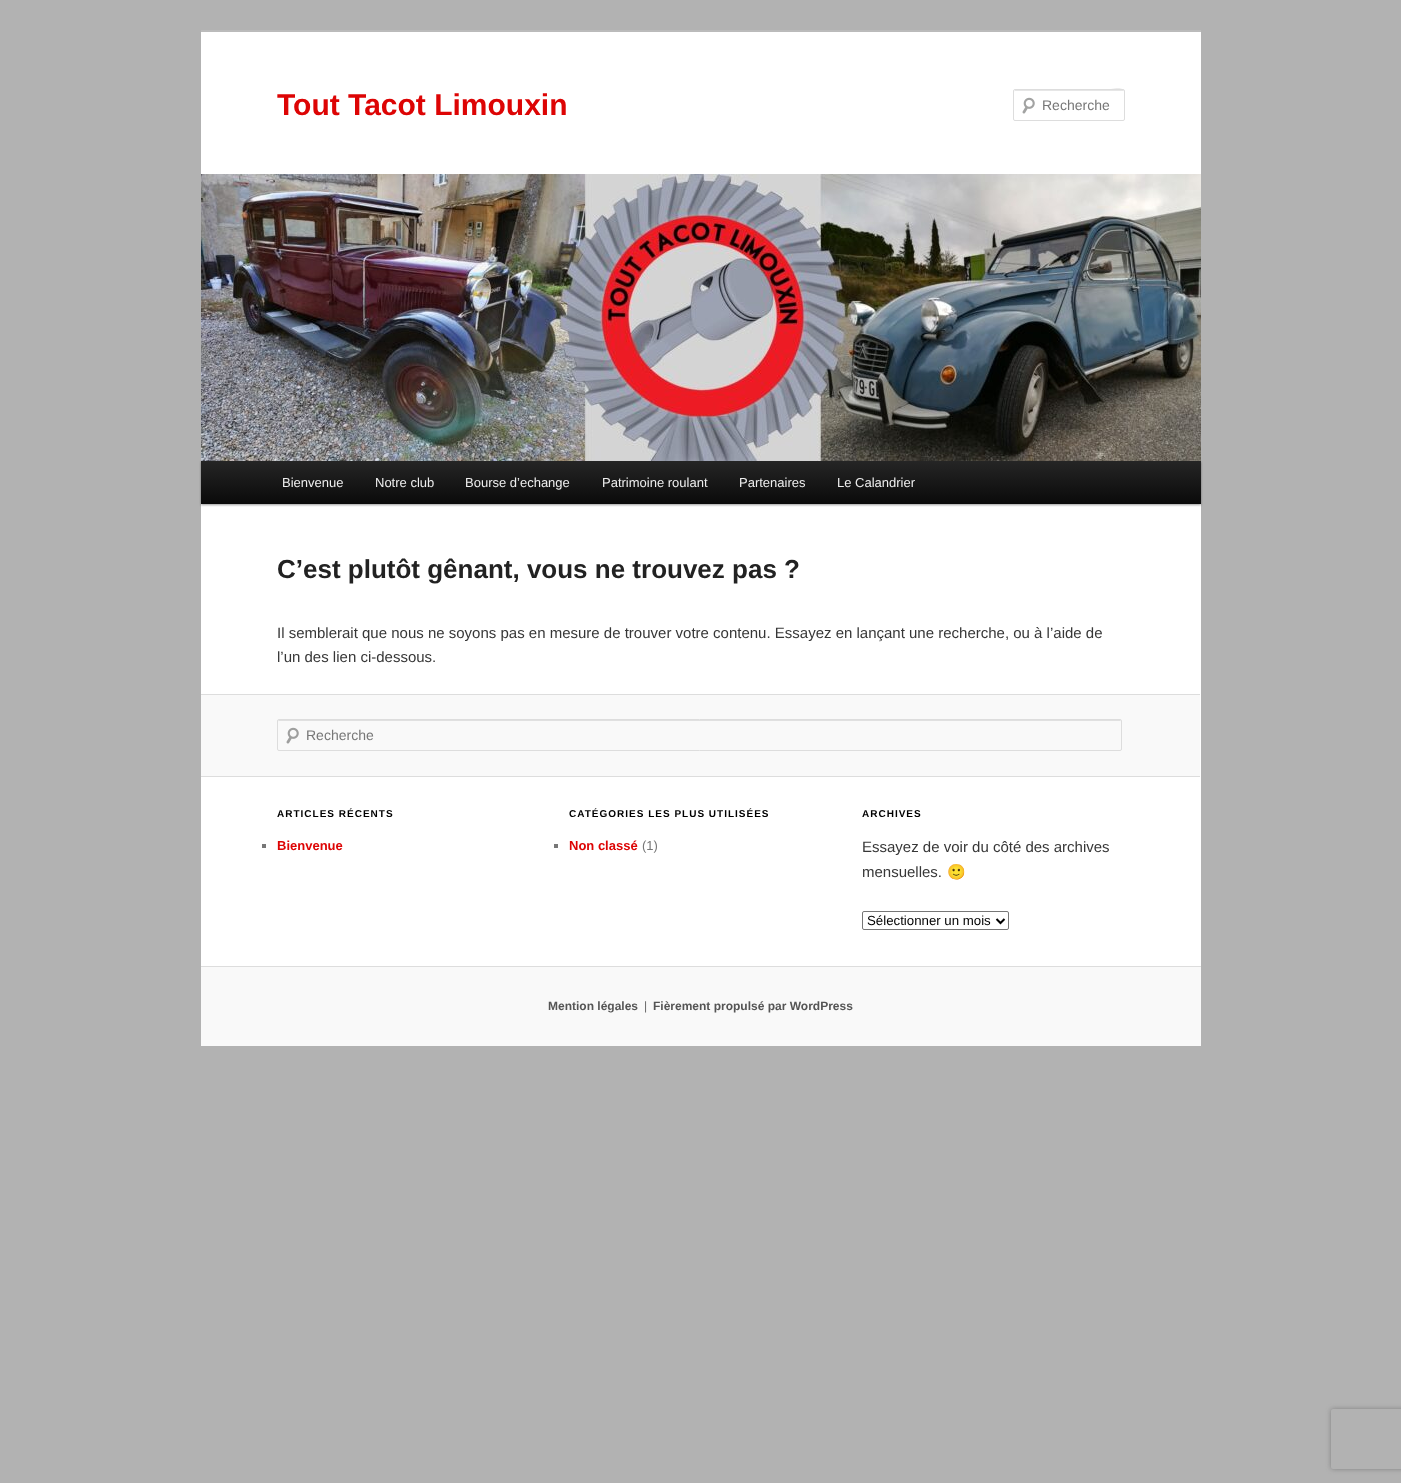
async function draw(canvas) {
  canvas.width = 1401;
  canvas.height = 1483;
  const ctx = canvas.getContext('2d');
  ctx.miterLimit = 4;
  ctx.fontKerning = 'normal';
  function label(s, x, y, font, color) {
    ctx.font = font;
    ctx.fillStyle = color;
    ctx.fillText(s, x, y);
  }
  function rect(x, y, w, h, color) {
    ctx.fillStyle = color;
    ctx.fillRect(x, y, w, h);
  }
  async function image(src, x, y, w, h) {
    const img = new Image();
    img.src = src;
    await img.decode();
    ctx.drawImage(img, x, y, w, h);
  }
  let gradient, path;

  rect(0, 0, 1401, 1483, '#b2b2b2');
  rect(201, 32, 1000, 934, '#fff');
  rect(201, 30, 1000, 2, '#bbb');
  label('Tout Tacot Limouxin', 277, 115, 'bold 30px Liberation Sans', '#dd0404');
  await image('assets/img1.png', 1022, 97, 13, 17);
  ctx.fillStyle = '#e6e6e6';
  path = new Path2D('M1015 91H1124V92C1124 85 1109 90 1105 90H1015L1014 92C1014 91 1014 91 1015 91Z');
  ctx.fill(path);
  ctx.beginPath();
  ctx.roundRect(1013.5, 89.5, 111, 31, 1.5);
  ctx.strokeStyle = '#ddd';
  ctx.stroke();
  label('Recherche', 1042, 110, '14px Liberation Sans', '#777');
  ctx.fillStyle = '#00000066';
  ctx.filter = 'blur(1px)';
  ctx.beginPath();
  ctx.rect(201, 462, 1000, 43);
  ctx.fill();
  ctx.filter = 'none';
  await image('assets/img2.png', 201, 174, 1000, 287);
  gradient = ctx.createLinearGradient(701, 461, 701, 504);
  gradient.addColorStop(0, '#252525');
  gradient.addColorStop(1, '#0a0a0a');
  ctx.fillStyle = gradient;
  ctx.fillRect(201, 461, 1000, 43);
  label('Bienvenue', 282, 487, '13px Liberation Sans', '#eee');
  label('Notre club', 375, 487, '13px Liberation Sans', '#eee');
  label('Bourse d’echange', 465, 487, '13px Liberation Sans', '#eee');
  label('Patrimoine roulant', 602, 487, '13px Liberation Sans', '#eee');
  label('Partenaires', 739, 487, '13px Liberation Sans', '#eee');
  label('Le Calandrier', 837, 487, '13px Liberation Sans', '#eee');
  label('C’est plutôt gênant, vous ne trouvez pas ?', 277, 578, 'bold 26px Liberation Sans', '#222');
  label('Il semblerait que nous ne soyons pas en mesure de trouver votre contenu. Essayez en lançant une recherche, ou à l’aide de', 277, 638, '15px Liberation Sans', '#373737');
  label('l’un des lien ci-dessous.', 277, 662, '15px Liberation Sans', '#373737');
  rect(201, 695, 999, 81, '#f9f9f9');
  rect(201, 694, 999, 1, '#ddd');
  rect(201, 776, 999, 1, '#ddd');
  await image('assets/img3.png', 286, 727, 13, 17);
  ctx.fillStyle = '#e0e0e0';
  path = new Path2D('M279 721H1120C1121 721 1121 721 1121 722V721L1120 720H279L278 721V722C278 721 278 721 279 721Z');
  ctx.fill(path);
  ctx.beginPath();
  ctx.roundRect(277.5, 719.5, 844, 31, 1.5);
  ctx.stroke();
  label('Recherche', 306, 740, '14px Liberation Sans', '#777');
  ctx.letterSpacing = '1px';
  label('ARTICLES RÉCENTS', 277, 817, 'bold 10px Liberation Sans', '#000');
  rect(262, 844, 4, 4, '#777');
  ctx.letterSpacing = '0px';
  label('Bienvenue', 277, 850, 'bold 13px Liberation Sans', '#dd0404');
  ctx.letterSpacing = '1px';
  label('CATÉGORIES LES PLUS UTILISÉES', 569, 817, 'bold 10px Liberation Sans', '#000');
  rect(554, 844, 4, 4, '#777');
  ctx.letterSpacing = '0px';
  label('Non classé', 569, 850, 'bold 13px Liberation Sans', '#dd0404');
  label('(1)', 642, 850, '13px Liberation Sans', '#777');
  ctx.letterSpacing = '1px';
  label('ARCHIVES', 862, 817, 'bold 10px Liberation Sans', '#000');
  ctx.letterSpacing = '0px';
  label('Essayez de voir du côté des archives', 862, 852, '15px Liberation Sans', '#373737');
  label('mensuelles.', 862, 877, '15px Liberation Sans', '#373737');
  label('🙂', 947, 877, '15px Noto Color Emoji', '#373737');
  ctx.beginPath();
  ctx.roundRect(862.5, 911.5, 146, 18, 1.5);
  ctx.strokeStyle = '#767676';
  ctx.stroke();
  path = new Path2D('M996.5 919L1000.5 923L1004.5 919');
  ctx.strokeStyle = '#000';
  ctx.lineWidth = 2;
  ctx.stroke(path);
  label('Sélectionner un mois', 867, 925, '13.25px Liberation Sans', '#000');
  rect(201, 967, 1000, 79, '#f9f9f9');
  rect(201, 966, 1000, 1, '#ddd');
  label('Mention légales', 548, 1010, 'bold 12px Liberation Sans', '#555');
  label('|', 644, 1010, '12px Liberation Sans', '#666');
  label('Fièrement propulsé par WordPress', 653, 1010, 'bold 12px Liberation Sans', '#555');
  ctx.save();
  path = new Path2D('M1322 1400H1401V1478H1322ZM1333 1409H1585C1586 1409 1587 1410 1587 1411V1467C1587 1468 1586 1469 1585 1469H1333C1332 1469 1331 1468 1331 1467V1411C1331 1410 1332 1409 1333 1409Z');
  ctx.clip(path, 'evenodd');
  ctx.fillStyle = '#808080';
  ctx.filter = 'blur(2.5px)';
  ctx.beginPath();
  ctx.roundRect(1331, 1409, 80, 60, 2);
  ctx.fill();
  ctx.filter = 'none';
  ctx.restore();
}

draw(document.querySelector('canvas'));
